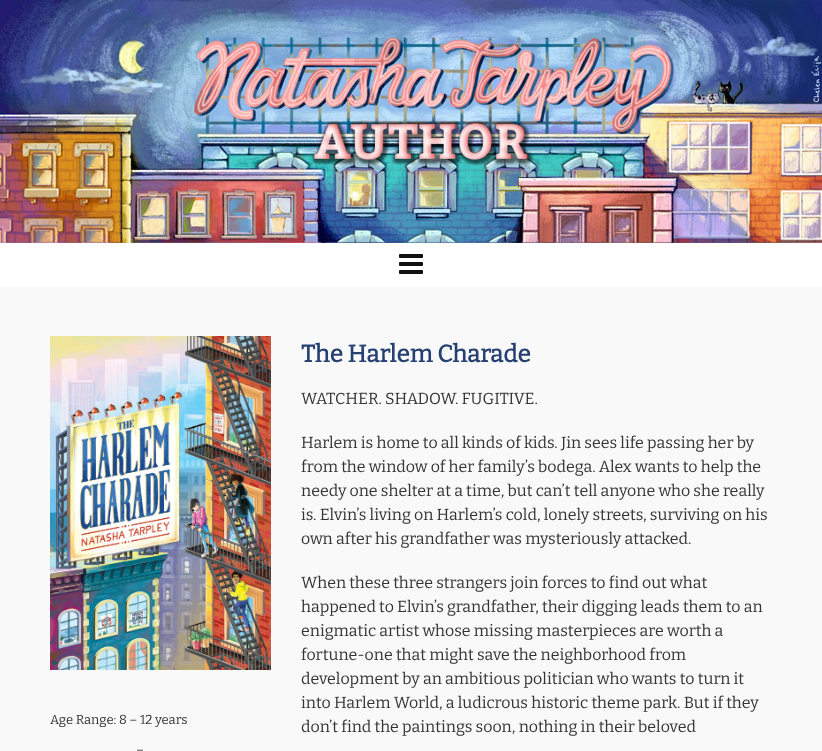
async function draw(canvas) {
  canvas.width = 822;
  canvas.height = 751;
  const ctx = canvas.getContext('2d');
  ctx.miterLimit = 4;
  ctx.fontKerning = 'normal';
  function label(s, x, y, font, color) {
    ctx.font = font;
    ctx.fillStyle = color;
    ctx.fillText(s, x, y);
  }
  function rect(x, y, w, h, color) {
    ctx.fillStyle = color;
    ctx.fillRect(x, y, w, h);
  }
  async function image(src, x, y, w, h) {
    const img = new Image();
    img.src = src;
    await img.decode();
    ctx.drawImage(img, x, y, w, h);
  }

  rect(0, 0, 822, 751, '#f9f9f9');
  rect(0, 243, 822, 44, '#fff');
  await image('assets/img1.png', 0, 0, 822, 243);
  await image('assets/img2.png', 399, 254, 24, 20);
  await image('assets/img3.png', 50, 336, 221, 334);
  label('Age Range: 8 – 12 years', 50, 724, '100 13px Bitter', '#333');
  label('–', 136, 754, '100 13px Bitter', '#333');
  label('The Harlem Charade', 301, 362, 'bold 24px Bitter', '#264072');
  label('WATCHER. SHADOW. FUGITIVE.', 301, 404, '100 16px Bitter', '#333');
  label('Harlem is home to all kinds of kids. Jin sees life passing her by', 301, 448, '100 16px Bitter', '#333');
  label('from the window of her family’s bodega. Alex wants to help the', 301, 472, '100 16px Bitter', '#333');
  label('needy one shelter at a time, but can’t tell anyone who she really', 301, 496, '100 16px Bitter', '#333');
  label('is. Elvin’s living on Harlem’s cold, lonely streets, surviving on his', 301, 520, '100 16px Bitter', '#333');
  label('own after his grandfather was mysteriously attacked.', 301, 544, '100 16px Bitter', '#333');
  label('When these three strangers join forces to find out what', 301, 588, '100 16px Bitter', '#333');
  label('happened to Elvin’s grandfather, their digging leads them to an', 301, 612, '100 16px Bitter', '#333');
  label('enigmatic artist whose missing masterpieces are worth a', 301, 636, '100 16px Bitter', '#333');
  label('fortune-one that might save the neighborhood from', 301, 660, '100 16px Bitter', '#333');
  label('development by an ambitious politician who wants to turn it', 301, 684, '100 16px Bitter', '#333');
  label('into Harlem World, a ludicrous historic theme park. But if they', 301, 708, '100 16px Bitter', '#333');
  label('don’t find the paintings soon, nothing in their beloved', 301, 732, '100 16px Bitter', '#333');
}

draw(document.querySelector('canvas'));
